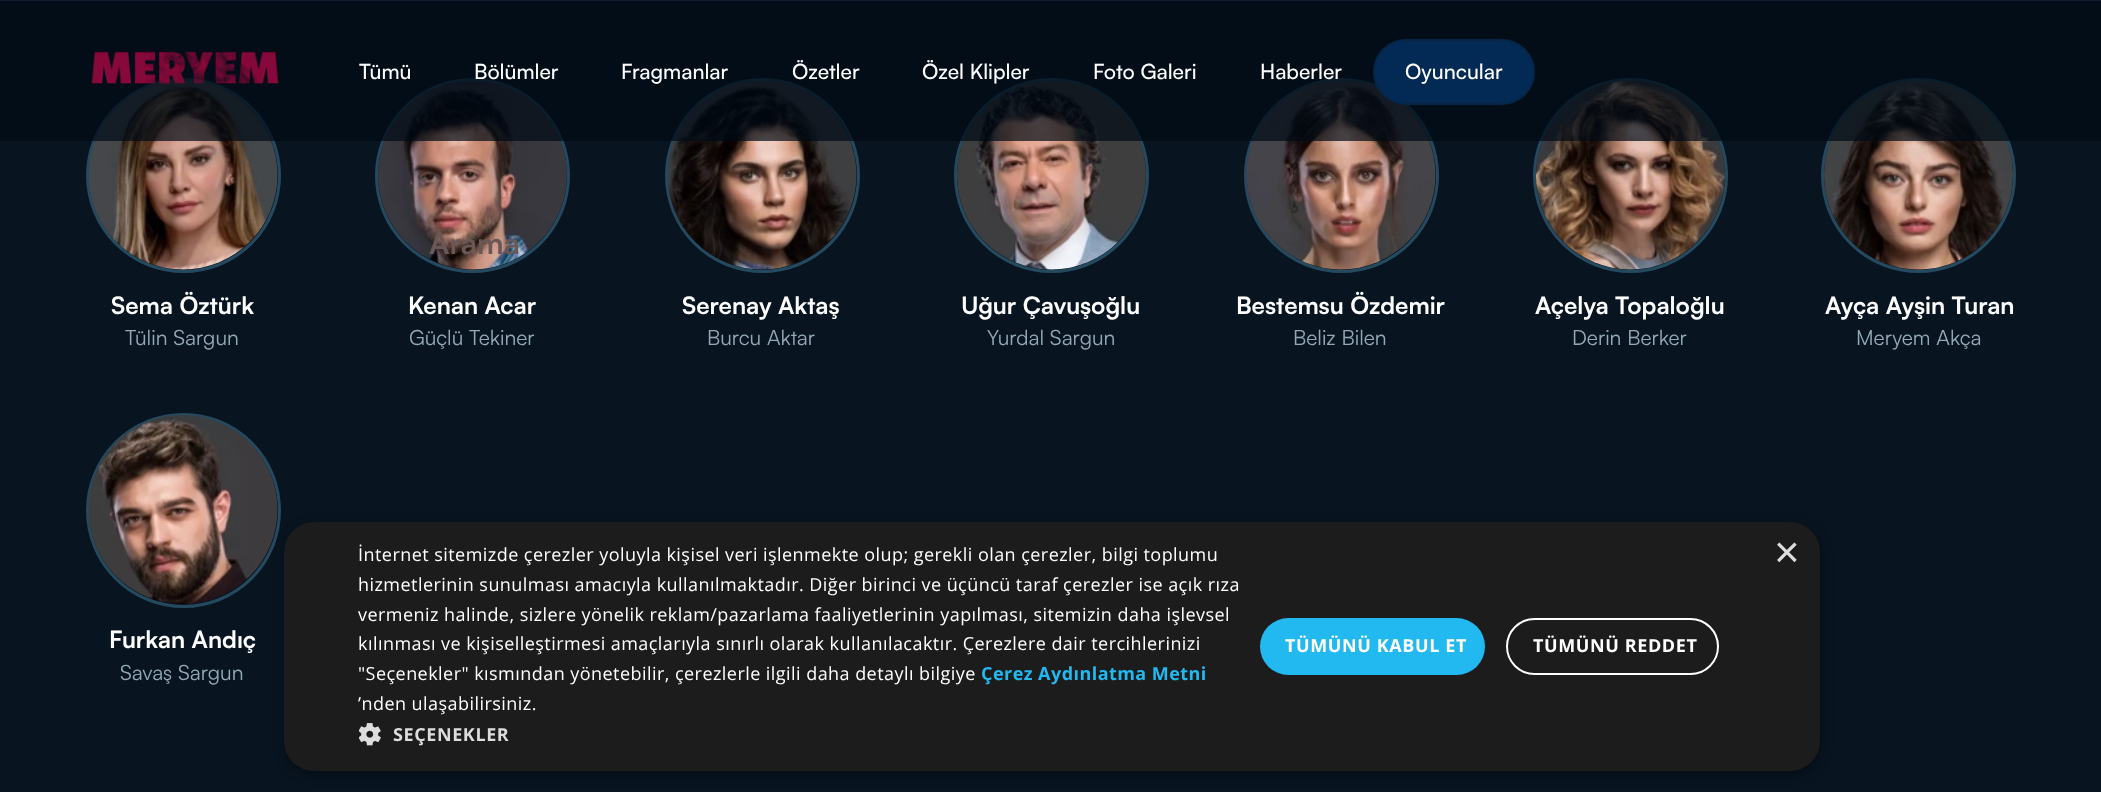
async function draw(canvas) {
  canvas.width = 2101;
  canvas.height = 792;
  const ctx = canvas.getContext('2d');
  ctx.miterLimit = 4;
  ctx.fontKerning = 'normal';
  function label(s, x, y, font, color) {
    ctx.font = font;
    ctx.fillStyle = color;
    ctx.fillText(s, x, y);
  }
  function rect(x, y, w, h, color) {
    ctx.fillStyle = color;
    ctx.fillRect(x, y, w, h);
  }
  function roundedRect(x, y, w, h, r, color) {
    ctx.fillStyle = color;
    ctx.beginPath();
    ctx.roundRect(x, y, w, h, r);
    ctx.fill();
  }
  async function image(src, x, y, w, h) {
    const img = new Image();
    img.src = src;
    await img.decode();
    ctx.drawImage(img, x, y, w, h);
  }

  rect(0, 0, 2101, 792, '#081420');
  ctx.beginPath();
  ctx.arc(183.5, 175.5, 96, 0, 2 * Math.PI);
  ctx.strokeStyle = '#254a60';
  ctx.lineWidth = 3;
  ctx.stroke();
  await image('assets/img2.png', 89, 81, 189, 189);
  ctx.beginPath();
  ctx.arc(472.5, 175.5, 96, 0, 2 * Math.PI);
  ctx.stroke();
  await image('assets/img3.png', 378, 81, 189, 189);
  ctx.beginPath();
  ctx.arc(762.5, 175.5, 96, 0, 2 * Math.PI);
  ctx.stroke();
  await image('assets/img4.png', 668, 81, 189, 189);
  ctx.beginPath();
  ctx.arc(1051.5, 175.5, 96, 0, 2 * Math.PI);
  ctx.stroke();
  await image('assets/img5.png', 957, 81, 189, 189);
  ctx.beginPath();
  ctx.arc(1341.5, 175.5, 96, 0, 2 * Math.PI);
  ctx.stroke();
  await image('assets/img6.png', 1247, 81, 189, 189);
  ctx.beginPath();
  ctx.arc(1630.5, 175.5, 96, 0, 2 * Math.PI);
  ctx.stroke();
  await image('assets/img7.png', 1536, 81, 189, 189);
  ctx.beginPath();
  ctx.arc(1918.5, 175.5, 96, 0, 2 * Math.PI);
  ctx.stroke();
  await image('assets/img8.png', 1824, 81, 189, 189);
  rect(0, 1, 2101, 140, '#000a15b3');
  await image('assets/img1.png', 91, 51, 188, 33);
  label('Tümü', 359, 79, '500 21px Satoshi', '#fff');
  label('Bölümler', 474, 79, '500 21px Satoshi', '#fff');
  label('Fragmanlar', 621, 79, '500 21px Satoshi', '#fff');
  label('Özetler', 792, 79, '500 21px Satoshi', '#fff');
  label('Özel Klipler', 922, 79, '500 21px Satoshi', '#fff');
  label('Foto Galeri', 1093, 79, '500 21px Satoshi', '#fff');
  label('Haberler', 1260, 79, '500 21px Satoshi', '#fff');
  ctx.fillStyle = '#022a54';
  ctx.beginPath();
  ctx.roundRect(1374, 40, 160, 64, 32);
  ctx.fill();
  ctx.strokeStyle = '#072646';
  ctx.lineWidth = 2;
  ctx.stroke();
  label('Oyuncular', 1405, 79, '500 21px Satoshi', '#fff');
  rect(0, 0, 2101, 1, '#0d1d2e');
  label('Arama', 429, 254, 'bold 30px Satoshi', '#6b5856');
  label('Sema Öztürk', 111, 314, 'bold 24px Satoshi', '#fff');
  label('Tülin Sargun', 125, 345, '21px Satoshi', '#94a9b6');
  label('Kenan Acar', 408, 314, 'bold 24px Satoshi', '#fff');
  label('Güçlü Tekiner', 409, 345, '21px Satoshi', '#94a9b6');
  label('Serenay Aktaş', 682, 314, 'bold 24px Satoshi', '#fff');
  label('Burcu Aktar', 707, 345, '21px Satoshi', '#94a9b6');
  label('Uğur Çavuşoğlu', 961, 314, 'bold 24px Satoshi', '#fff');
  label('Yurdal Sargun', 987, 345, '21px Satoshi', '#94a9b6');
  label('Bestemsu Özdemir', 1236, 314, 'bold 24px Satoshi', '#fff');
  label('Beliz Bilen', 1293, 345, '21px Satoshi', '#94a9b6');
  label('Açelya Topaloğlu', 1535, 314, 'bold 24px Satoshi', '#fff');
  label('Derin Berker', 1572, 345, '21px Satoshi', '#94a9b6');
  label('Ayça Ayşin Turan', 1825, 314, 'bold 24px Satoshi', '#fff');
  label('Meryem Akça', 1856, 345, '21px Satoshi', '#94a9b6');
  ctx.beginPath();
  ctx.arc(183.5, 510.5, 96, 0, 2 * Math.PI);
  ctx.strokeStyle = '#254a60';
  ctx.lineWidth = 3;
  ctx.stroke();
  await image('assets/img9.png', 89, 415, 189, 189);
  label('Furkan Andıç', 109, 648, 'bold 24px Satoshi', '#fff');
  label('Savaş Sargun', 120, 680, '21px Satoshi', '#94a9b6');
  ctx.fillStyle = '#00000059';
  ctx.filter = 'blur(6px)';
  ctx.beginPath();
  ctx.roundRect(285, 525, 1536, 249, 30);
  ctx.fill();
  ctx.filter = 'none';
  roundedRect(284, 522, 1536, 249, 30, '#1c1c1c');
  ctx.letterSpacing = '0.45px';
  label('İnternet sitemizde çerezler yoluyla kişisel veri işlenmekte olup; gerekli olan çerezler, bilgi toplumu', 358, 561, '18px Open Sans', '#fff');
  label('hizmetlerinin sunulması amacıyla kullanılmaktadır. Diğer birinci ve üçüncü taraf çerezler ise açık rıza', 358, 591, '18px Open Sans', '#fff');
  label('vermeniz halinde, sizlere yönelik reklam/pazarlama faaliyetlerinin yapılması, sitemizin daha işlevsel', 358, 621, '18px Open Sans', '#fff');
  label('kılınması ve kişiselleştirmesi amaçlarıyla sınırlı olarak kullanılacaktır. Çerezlere dair tercihlerinizi', 358, 650, '18px Open Sans', '#fff');
  label('"Seçenekler" kısmından yönetebilir, çerezlerle ilgili daha detaylı bilgiye', 358, 680, '18px Open Sans', '#fff');
  label('Çerez Aydınlatma Metni', 981, 680, 'bold 18px Open Sans', '#22b8f0');
  label('’nden ulaşabilirsiniz.', 358, 710, '18px Open Sans', '#fff');
  await image('assets/img10.png', 359, 723, 22, 23);
  ctx.letterSpacing = '0.6px';
  label('SEÇENEKLER', 393, 741, 'bold 18px Open Sans', '#ddd');
  roundedRect(1260, 618, 225, 57, 28.5, '#22b8f0');
  label('TÜMÜNÜ KABUL ET', 1285, 652, 'bold 18px Open Sans', '#fff');
  ctx.beginPath();
  ctx.roundRect(1507, 619, 211, 55, 27.5);
  ctx.strokeStyle = '#fff';
  ctx.lineWidth = 2;
  ctx.stroke();
  label('TÜMÜNÜ REDDET', 1533, 652, 'bold 18px Open Sans', '#fff');
  ctx.letterSpacing = '0px';
  label('×', 1774, 567, '44px Liberation Sans', '#ddd');
}

draw(document.querySelector('canvas'));
